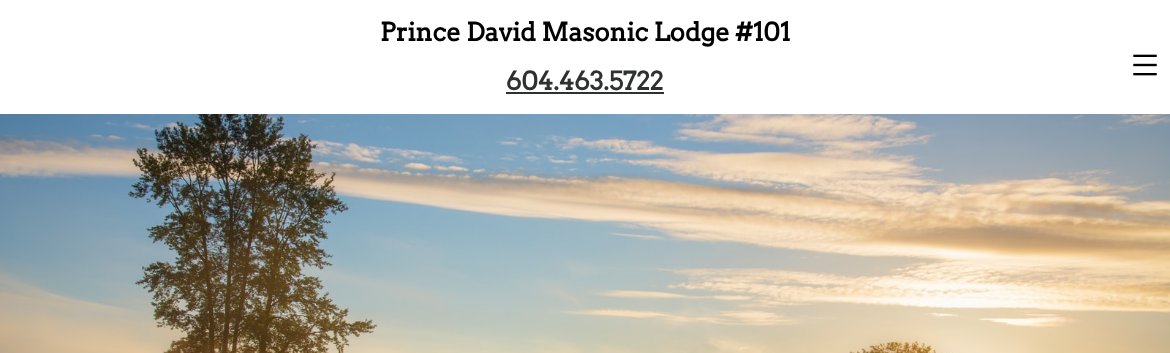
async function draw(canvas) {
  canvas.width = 1170;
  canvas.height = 353;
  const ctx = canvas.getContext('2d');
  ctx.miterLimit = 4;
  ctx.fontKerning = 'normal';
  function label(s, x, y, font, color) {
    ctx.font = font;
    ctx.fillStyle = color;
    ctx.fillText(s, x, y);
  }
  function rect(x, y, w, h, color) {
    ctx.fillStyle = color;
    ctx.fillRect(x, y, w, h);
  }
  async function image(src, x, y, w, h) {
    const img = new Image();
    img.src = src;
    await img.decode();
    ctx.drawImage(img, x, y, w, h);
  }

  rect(0, 0, 1170, 353, '#fff');
  label('Prince David Masonic Lodge #101', 380, 41, 'bold 25.25px Arvo', '#000');
  label('604.463.5722', 506, 90, 'bold 25.25px Arvo', '#2f3130');
  rect(506, 92, 158, 2, '#2f3130');
  await image('assets/img1.png', 1133, 54, 24, 22);
  await image('assets/img2.png', 0, 114, 1170, 239);
}

draw(document.querySelector('canvas'));
